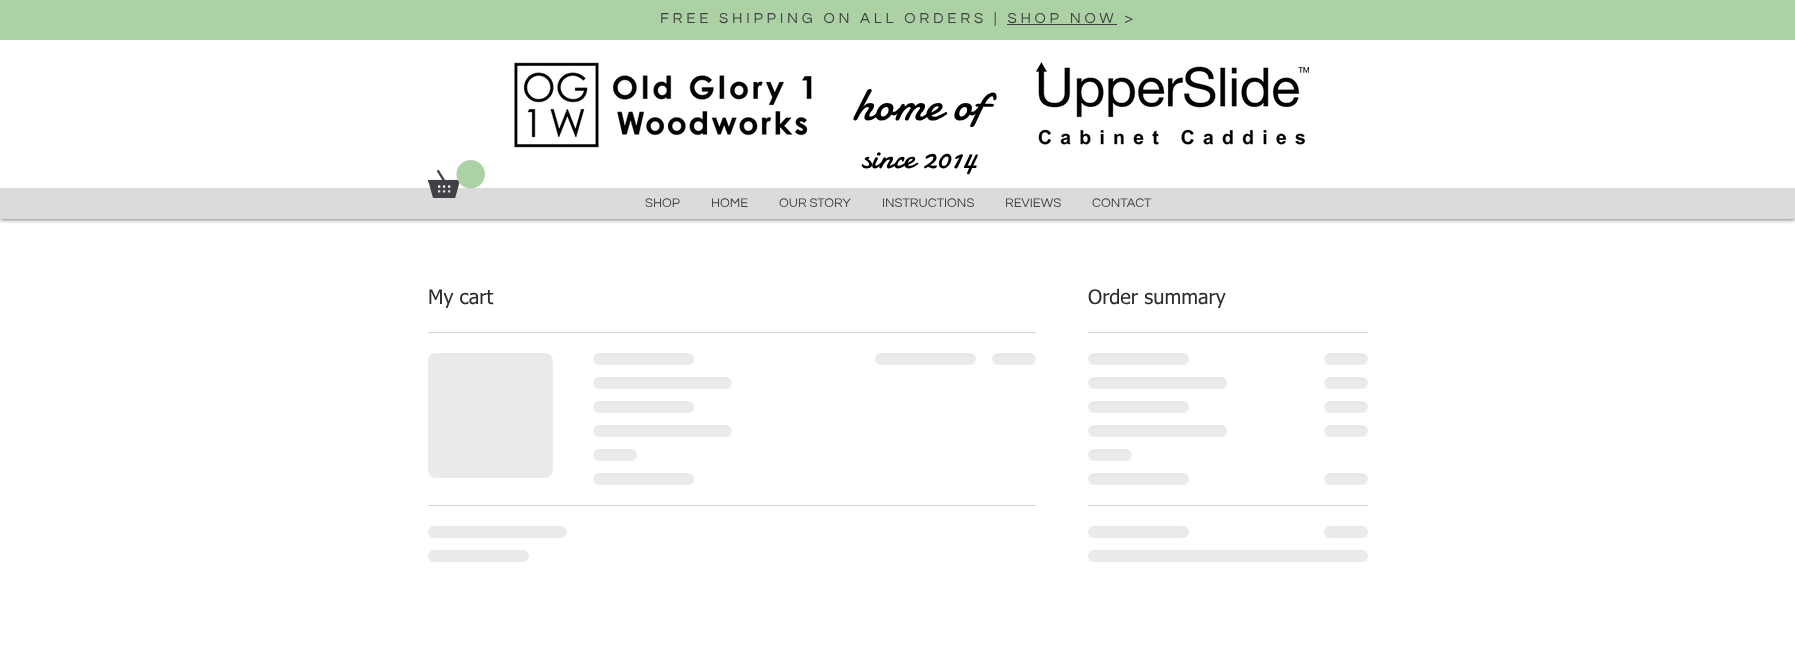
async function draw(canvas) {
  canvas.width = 1795;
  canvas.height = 660;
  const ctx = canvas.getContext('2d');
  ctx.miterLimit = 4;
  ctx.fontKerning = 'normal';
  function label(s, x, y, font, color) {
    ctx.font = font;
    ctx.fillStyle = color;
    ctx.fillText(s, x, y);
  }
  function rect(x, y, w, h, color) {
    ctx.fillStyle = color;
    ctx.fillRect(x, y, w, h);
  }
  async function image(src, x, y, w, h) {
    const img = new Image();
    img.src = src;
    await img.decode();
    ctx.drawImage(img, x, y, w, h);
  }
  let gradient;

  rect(0, 0, 1795, 660, '#fff');
  ctx.save();
  ctx.beginPath();
  ctx.rect(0, 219, 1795, 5);
  ctx.clip();
  ctx.fillStyle = '#000000b3';
  ctx.filter = 'blur(2.5px)';
  ctx.beginPath();
  ctx.rect(0, 0, 1795, 219);
  ctx.fill();
  ctx.filter = 'none';
  ctx.restore();
  rect(0, 0, 1795, 40, '#acd1a5');
  ctx.letterSpacing = '3.75px';
  label('FREE SHIPPING ON ALL ORDERS | SHOP NOW >', 660, 23, '15px Questrial', '#404144');
  rect(1007, 24, 110, 1, '#404144');
  await image('assets/img1.png', 514, 62, 298, 86);
  ctx.letterSpacing = '0px';
  label('home of', 854, 120, '48px Damion', '#000');
  await image('assets/img2.png', 1036, 62, 273, 83);
  rect(0, 188, 1795, 31, '#dbdbdb');
  await image('assets/img3.png', 428, 160, 57, 38);
  label('since 2014', 862, 168, '32px Damion', '#000');
  label('SHOP', 645, 207, '13px Questrial', '#404144');
  label('HOME', 711, 207, '13px Questrial', '#404144');
  label('OUR STORY', 779, 207, '13px Questrial', '#404144');
  label('INSTRUCTIONS', 882, 207, '13px Questrial', '#404144');
  label('REVIEWS', 1005, 207, '13px Questrial', '#404144');
  label('CONTACT', 1092, 207, '13px Questrial', '#404144');
  rect(428, 332, 608, 1, '#d5d5d5');
  label('My cart', 428, 304, '20px tahoma', '#2d2d2f');
  gradient = ctx.createLinearGradient(428, 416, 928, 416);
  gradient.addColorStop(0.25, '#eaeaea');
  gradient.addColorStop(0.37, '#d5d5d5');
  gradient.addColorStop(0.63, '#eaeaea');
  ctx.fillStyle = gradient;
  ctx.beginPath();
  ctx.roundRect(428, 353, 125, 125, 8);
  ctx.fill();
  gradient = ctx.createLinearGradient(593, 359, 997, 359);
  gradient.addColorStop(0.25, '#eaeaea');
  gradient.addColorStop(0.37, '#d5d5d5');
  gradient.addColorStop(0.63, '#eaeaea');
  ctx.fillStyle = gradient;
  ctx.beginPath();
  ctx.roundRect(593, 353, 101, 12, 6);
  ctx.fill();
  gradient = ctx.createLinearGradient(593, 383, 1149, 383);
  gradient.addColorStop(0.25, '#eaeaea');
  gradient.addColorStop(0.37, '#d5d5d5');
  gradient.addColorStop(0.63, '#eaeaea');
  ctx.fillStyle = gradient;
  ctx.beginPath();
  ctx.roundRect(593, 377, 139, 12, 6);
  ctx.fill();
  gradient = ctx.createLinearGradient(593, 407, 997, 407);
  gradient.addColorStop(0.25, '#eaeaea');
  gradient.addColorStop(0.37, '#d5d5d5');
  gradient.addColorStop(0.63, '#eaeaea');
  ctx.fillStyle = gradient;
  ctx.beginPath();
  ctx.roundRect(593, 401, 101, 12, 6);
  ctx.fill();
  gradient = ctx.createLinearGradient(593, 431, 1149, 431);
  gradient.addColorStop(0.25, '#eaeaea');
  gradient.addColorStop(0.37, '#d5d5d5');
  gradient.addColorStop(0.63, '#eaeaea');
  ctx.fillStyle = gradient;
  ctx.beginPath();
  ctx.roundRect(593, 425, 139, 12, 6);
  ctx.fill();
  gradient = ctx.createLinearGradient(593, 455, 769, 455);
  gradient.addColorStop(0.25, '#eaeaea');
  gradient.addColorStop(0.37, '#d5d5d5');
  gradient.addColorStop(0.63, '#eaeaea');
  ctx.fillStyle = gradient;
  ctx.beginPath();
  ctx.roundRect(593, 449, 44, 12, 6);
  ctx.fill();
  gradient = ctx.createLinearGradient(593, 479, 997, 479);
  gradient.addColorStop(0.25, '#eaeaea');
  gradient.addColorStop(0.37, '#d5d5d5');
  gradient.addColorStop(0.63, '#eaeaea');
  ctx.fillStyle = gradient;
  ctx.beginPath();
  ctx.roundRect(593, 473, 101, 12, 6);
  ctx.fill();
  gradient = ctx.createLinearGradient(875, 359, 1279, 359);
  gradient.addColorStop(0.25, '#eaeaea');
  gradient.addColorStop(0.37, '#d5d5d5');
  gradient.addColorStop(0.63, '#eaeaea');
  ctx.fillStyle = gradient;
  ctx.beginPath();
  ctx.roundRect(875, 353, 101, 12, 6);
  ctx.fill();
  gradient = ctx.createLinearGradient(992, 359, 1168, 359);
  gradient.addColorStop(0.25, '#eaeaea');
  gradient.addColorStop(0.37, '#d5d5d5');
  gradient.addColorStop(0.63, '#eaeaea');
  ctx.fillStyle = gradient;
  ctx.beginPath();
  ctx.roundRect(992, 353, 44, 12, 6);
  ctx.fill();
  rect(428, 505, 608, 1, '#d5d5d5');
  gradient = ctx.createLinearGradient(428, 532, 984, 532);
  gradient.addColorStop(0.25, '#eaeaea');
  gradient.addColorStop(0.37, '#d5d5d5');
  gradient.addColorStop(0.63, '#eaeaea');
  ctx.fillStyle = gradient;
  ctx.beginPath();
  ctx.roundRect(428, 526, 139, 12, 6);
  ctx.fill();
  gradient = ctx.createLinearGradient(428, 556, 832, 556);
  gradient.addColorStop(0.25, '#eaeaea');
  gradient.addColorStop(0.37, '#d5d5d5');
  gradient.addColorStop(0.63, '#eaeaea');
  ctx.fillStyle = gradient;
  ctx.beginPath();
  ctx.roundRect(428, 550, 101, 12, 6);
  ctx.fill();
  rect(1088, 332, 280, 1, '#d5d5d5');
  label('Order summary', 1088, 304, '20px tahoma', '#2d2d2f');
  gradient = ctx.createLinearGradient(1088, 359, 1492, 359);
  gradient.addColorStop(0.25, '#eaeaea');
  gradient.addColorStop(0.37, '#d5d5d5');
  gradient.addColorStop(0.63, '#eaeaea');
  ctx.fillStyle = gradient;
  ctx.beginPath();
  ctx.roundRect(1088, 353, 101, 12, 6);
  ctx.fill();
  gradient = ctx.createLinearGradient(1324, 359, 1500, 359);
  gradient.addColorStop(0.25, '#eaeaea');
  gradient.addColorStop(0.37, '#d5d5d5');
  gradient.addColorStop(0.63, '#eaeaea');
  ctx.fillStyle = gradient;
  ctx.beginPath();
  ctx.roundRect(1324, 353, 44, 12, 6);
  ctx.fill();
  gradient = ctx.createLinearGradient(1088, 383, 1644, 383);
  gradient.addColorStop(0.25, '#eaeaea');
  gradient.addColorStop(0.37, '#d5d5d5');
  gradient.addColorStop(0.63, '#eaeaea');
  ctx.fillStyle = gradient;
  ctx.beginPath();
  ctx.roundRect(1088, 377, 139, 12, 6);
  ctx.fill();
  gradient = ctx.createLinearGradient(1324, 383, 1500, 383);
  gradient.addColorStop(0.25, '#eaeaea');
  gradient.addColorStop(0.37, '#d5d5d5');
  gradient.addColorStop(0.63, '#eaeaea');
  ctx.fillStyle = gradient;
  ctx.beginPath();
  ctx.roundRect(1324, 377, 44, 12, 6);
  ctx.fill();
  gradient = ctx.createLinearGradient(1088, 407, 1492, 407);
  gradient.addColorStop(0.25, '#eaeaea');
  gradient.addColorStop(0.37, '#d5d5d5');
  gradient.addColorStop(0.63, '#eaeaea');
  ctx.fillStyle = gradient;
  ctx.beginPath();
  ctx.roundRect(1088, 401, 101, 12, 6);
  ctx.fill();
  gradient = ctx.createLinearGradient(1324, 407, 1500, 407);
  gradient.addColorStop(0.25, '#eaeaea');
  gradient.addColorStop(0.37, '#d5d5d5');
  gradient.addColorStop(0.63, '#eaeaea');
  ctx.fillStyle = gradient;
  ctx.beginPath();
  ctx.roundRect(1324, 401, 44, 12, 6);
  ctx.fill();
  gradient = ctx.createLinearGradient(1088, 431, 1644, 431);
  gradient.addColorStop(0.25, '#eaeaea');
  gradient.addColorStop(0.37, '#d5d5d5');
  gradient.addColorStop(0.63, '#eaeaea');
  ctx.fillStyle = gradient;
  ctx.beginPath();
  ctx.roundRect(1088, 425, 139, 12, 6);
  ctx.fill();
  gradient = ctx.createLinearGradient(1324, 431, 1500, 431);
  gradient.addColorStop(0.25, '#eaeaea');
  gradient.addColorStop(0.37, '#d5d5d5');
  gradient.addColorStop(0.63, '#eaeaea');
  ctx.fillStyle = gradient;
  ctx.beginPath();
  ctx.roundRect(1324, 425, 44, 12, 6);
  ctx.fill();
  gradient = ctx.createLinearGradient(1088, 455, 1264, 455);
  gradient.addColorStop(0.25, '#eaeaea');
  gradient.addColorStop(0.37, '#d5d5d5');
  gradient.addColorStop(0.63, '#eaeaea');
  ctx.fillStyle = gradient;
  ctx.beginPath();
  ctx.roundRect(1088, 449, 44, 12, 6);
  ctx.fill();
  gradient = ctx.createLinearGradient(1088, 479, 1492, 479);
  gradient.addColorStop(0.25, '#eaeaea');
  gradient.addColorStop(0.37, '#d5d5d5');
  gradient.addColorStop(0.63, '#eaeaea');
  ctx.fillStyle = gradient;
  ctx.beginPath();
  ctx.roundRect(1088, 473, 101, 12, 6);
  ctx.fill();
  gradient = ctx.createLinearGradient(1324, 479, 1500, 479);
  gradient.addColorStop(0.25, '#eaeaea');
  gradient.addColorStop(0.37, '#d5d5d5');
  gradient.addColorStop(0.63, '#eaeaea');
  ctx.fillStyle = gradient;
  ctx.beginPath();
  ctx.roundRect(1324, 473, 44, 12, 6);
  ctx.fill();
  rect(1088, 505, 280, 1, '#d5d5d5');
  gradient = ctx.createLinearGradient(1088, 532, 1492, 532);
  gradient.addColorStop(0.25, '#eaeaea');
  gradient.addColorStop(0.37, '#d5d5d5');
  gradient.addColorStop(0.63, '#eaeaea');
  ctx.fillStyle = gradient;
  ctx.beginPath();
  ctx.roundRect(1088, 526, 101, 12, 6);
  ctx.fill();
  gradient = ctx.createLinearGradient(1324, 532, 1500, 532);
  gradient.addColorStop(0.25, '#eaeaea');
  gradient.addColorStop(0.37, '#d5d5d5');
  gradient.addColorStop(0.63, '#eaeaea');
  ctx.fillStyle = gradient;
  ctx.beginPath();
  ctx.roundRect(1324, 526, 44, 12, 6);
  ctx.fill();
  gradient = ctx.createLinearGradient(1088, 556, 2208, 556);
  gradient.addColorStop(0.25, '#eaeaea');
  gradient.addColorStop(0.37, '#d5d5d5');
  gradient.addColorStop(0.63, '#eaeaea');
  ctx.fillStyle = gradient;
  ctx.beginPath();
  ctx.roundRect(1088, 550, 280, 12, 6);
  ctx.fill();
}

draw(document.querySelector('canvas'));
